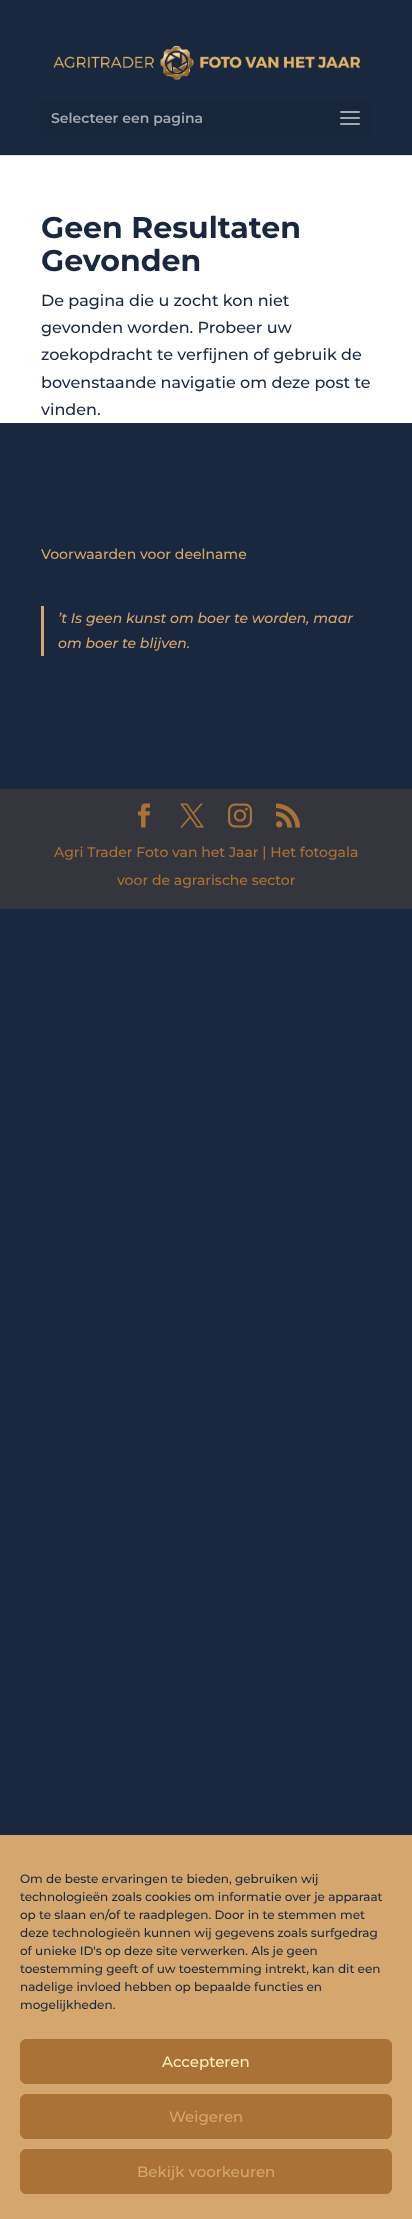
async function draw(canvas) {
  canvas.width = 412;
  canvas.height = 2219;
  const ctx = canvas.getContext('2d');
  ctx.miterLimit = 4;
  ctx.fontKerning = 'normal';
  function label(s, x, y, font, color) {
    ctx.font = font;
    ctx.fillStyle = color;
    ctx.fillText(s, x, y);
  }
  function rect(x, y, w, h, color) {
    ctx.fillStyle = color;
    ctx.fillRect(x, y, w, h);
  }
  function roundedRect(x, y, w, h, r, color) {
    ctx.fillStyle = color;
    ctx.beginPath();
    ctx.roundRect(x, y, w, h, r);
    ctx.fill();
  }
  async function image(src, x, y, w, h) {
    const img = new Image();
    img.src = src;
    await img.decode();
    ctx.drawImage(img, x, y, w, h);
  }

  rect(0, 0, 412, 2219, '#19283f');
  rect(0, 155, 412, 1, '#e6e6e6');
  await image('assets/img1.png', 53, 45, 308, 35);
  roundedRect(41, 101, 330, 34, 5, '#18263c');
  label('Selecteer een pagina', 51, 123, '600 14px Montserrat', '#a3a8b1');
  await image('assets/img2.png', 340, 111, 20, 14);
  rect(0, 156, 412, 267, '#fff');
  label('Geen Resultaten', 41, 238, 'bold 30px Montserrat', '#19283f');
  label('Gevonden', 41, 271, 'bold 30px Montserrat', '#19283f');
  label('De pagina die u zocht kon niet', 41, 306, '500 16px Montserrat', '#19283f');
  label('gevonden worden. Probeer uw', 41, 333, '500 16px Montserrat', '#19283f');
  label('zoekopdracht te verfijnen of gebruik de', 41, 360, '500 16px Montserrat', '#19283f');
  label('bovenstaande navigatie om deze post te', 41, 388, '500 16px Montserrat', '#19283f');
  label('vinden.', 41, 415, '500 16px Montserrat', '#19283f');
  label('Voorwaarden voor deelname', 41, 559, '500 14px Montserrat', '#d5a66d');
  rect(41, 606, 3, 50, '#d5a66d');
  label('’t Is geen kunst om boer te worden, maar', 58, 623, 'italic 500 14px Montserrat', '#d5a66d');
  label('om boer te blijven.', 58, 648, 'italic 500 14px Montserrat', '#d5a66d');
  rect(0, 789, 412, 120, '#35363d');
  await image('assets/img3.png', 138, 803, 12, 25);
  await image('assets/img4.png', 180, 803, 24, 25);
  await image('assets/img5.png', 228, 803, 24, 25);
  await image('assets/img6.png', 276, 803, 24, 25);
  label('Agri Trader Foto van het Jaar | Het fotogala', 54, 857, '500 14px Montserrat', '#aa7236');
  label('voor de agrarische sector', 117, 885, '500 14px Montserrat', '#aa7236');
  rect(0, 1835, 412, 384, '#d5a66d');
  label('Om de beste ervaringen te bieden, gebruiken wij', 20, 1883, '500 12px Montserrat', '#19283f');
  label('technologieën zoals cookies om informatie over je apparaat', 20, 1901, '500 12px Montserrat', '#19283f');
  label('op te slaan en/of te raadplegen. Door in te stemmen met', 20, 1919, '500 12px Montserrat', '#19283f');
  label('deze technologieën kunnen wij gegevens zoals surfgedrag', 20, 1937, '500 12px Montserrat', '#19283f');
  label('of unieke ID\'s op deze site verwerken. Als je geen', 20, 1955, '500 12px Montserrat', '#19283f');
  label('toestemming geeft of uw toestemming intrekt, kan dit een', 20, 1973, '500 12px Montserrat', '#19283f');
  label('nadelige invloed hebben op bepaalde functies en', 20, 1991, '500 12px Montserrat', '#19283f');
  label('mogelijkheden.', 20, 2009, '500 12px Montserrat', '#19283f');
  ctx.fillStyle = '#aa7236';
  ctx.beginPath();
  ctx.roundRect(20.5, 2039.5, 371, 44, 5.5);
  ctx.fill();
  ctx.strokeStyle = '#aa7236';
  ctx.stroke();
  label('Accepteren', 162, 2067, '500 15px Montserrat', '#fdf1be');
  ctx.fillStyle = '#aa7236';
  ctx.beginPath();
  ctx.roundRect(20.5, 2094.5, 371, 44, 5.5);
  ctx.fill();
  ctx.stroke();
  label('Weigeren', 169, 2122, '500 15px Montserrat', '#d5a66d');
  ctx.fillStyle = '#aa7236';
  ctx.beginPath();
  ctx.roundRect(20.5, 2149.5, 371, 44, 5.5);
  ctx.fill();
  ctx.stroke();
  label('Bekijk voorkeuren', 137, 2177, '500 15px Montserrat', '#d5a66d');
}

draw(document.querySelector('canvas'));
